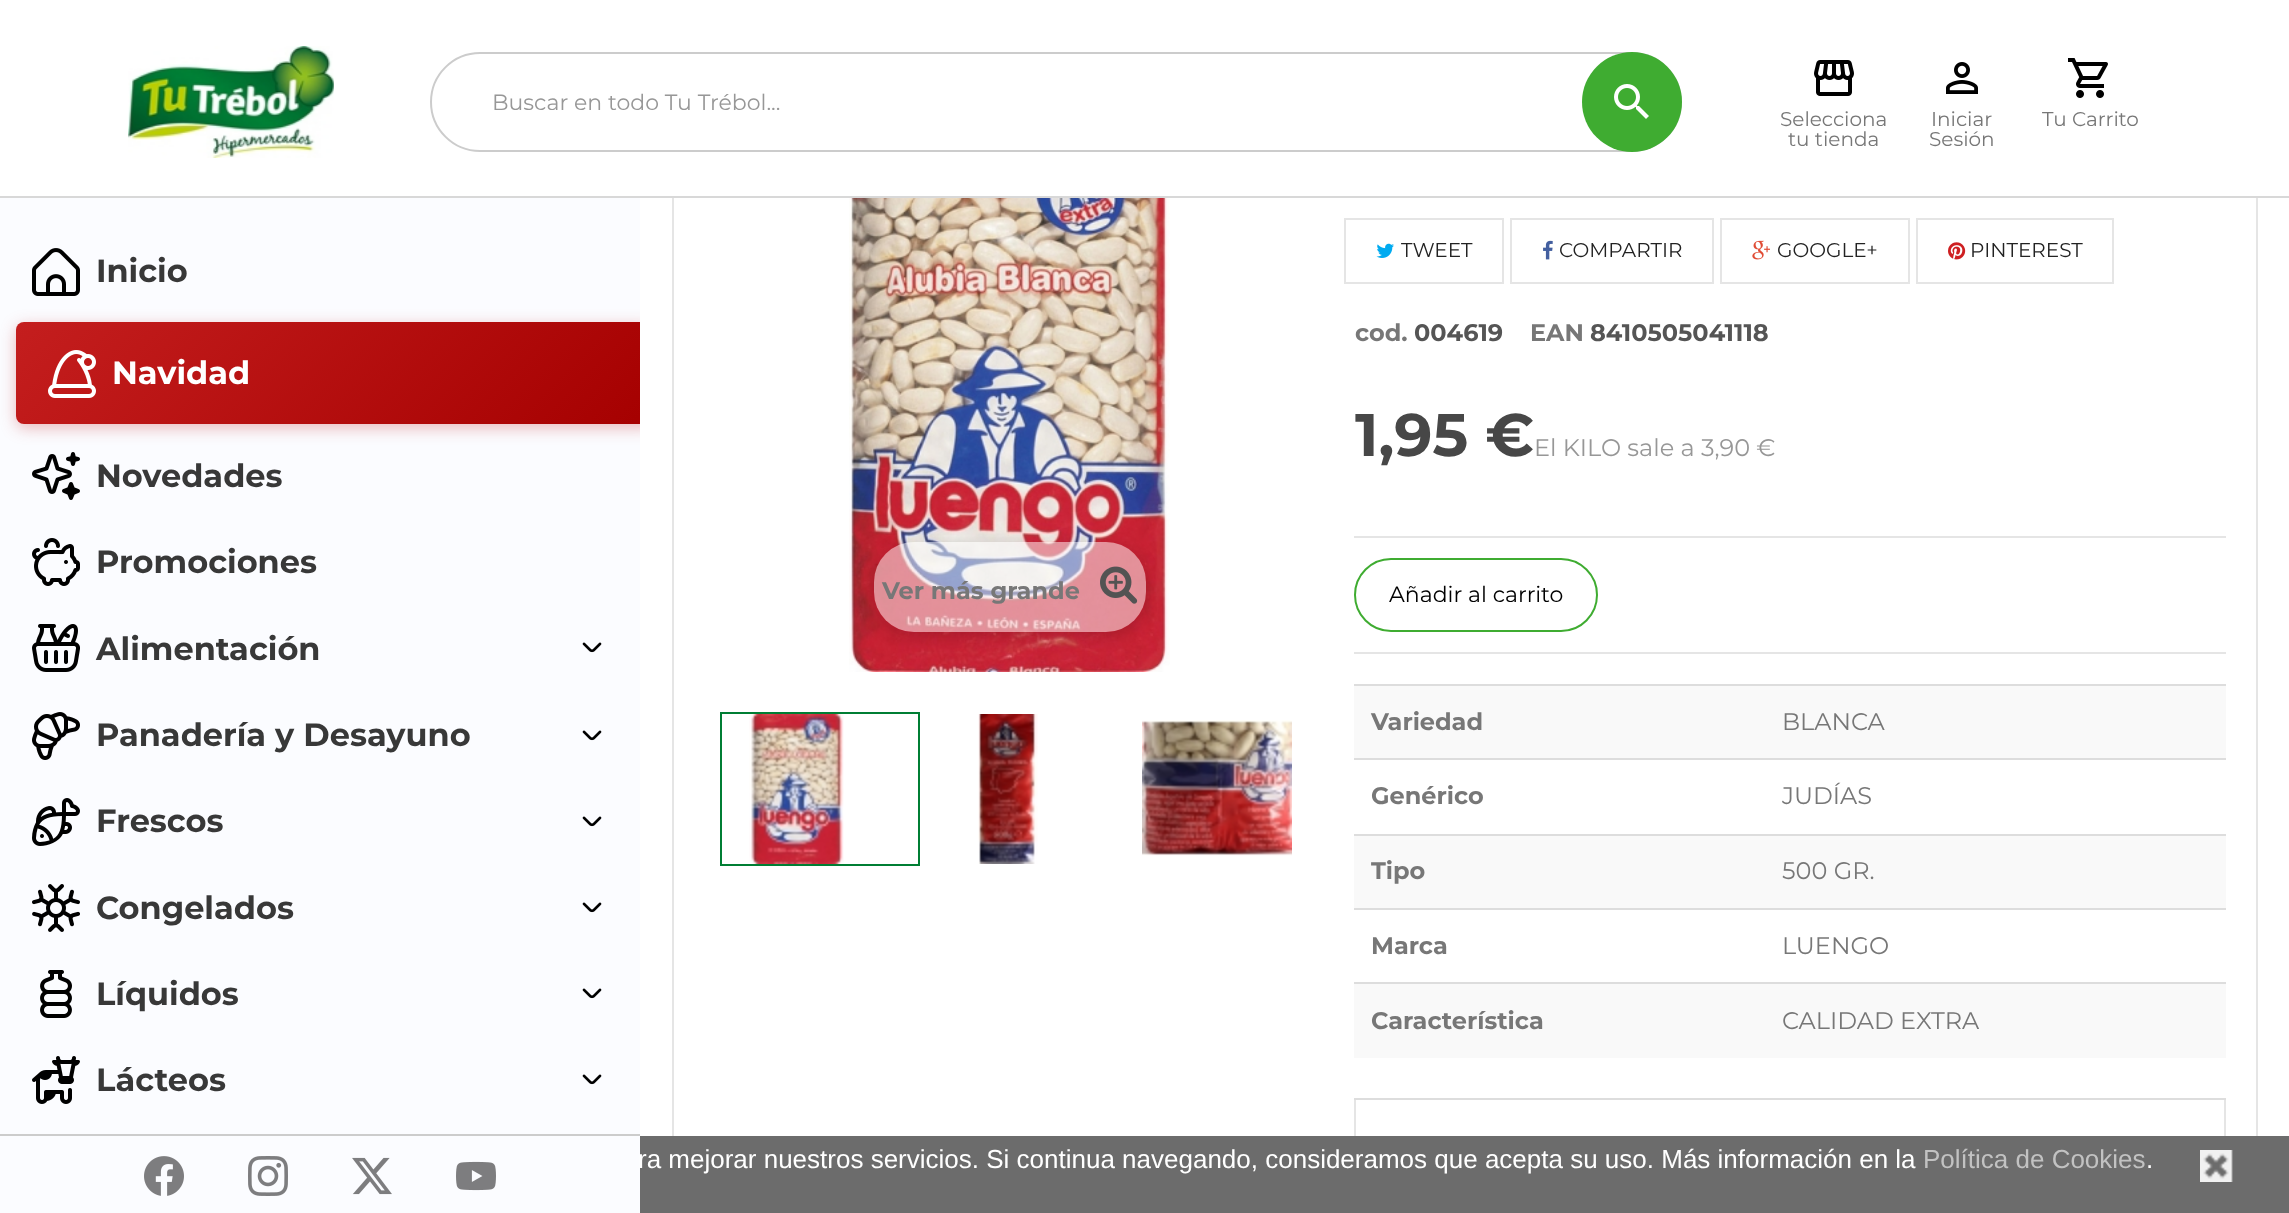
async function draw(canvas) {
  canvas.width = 2289;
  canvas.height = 1213;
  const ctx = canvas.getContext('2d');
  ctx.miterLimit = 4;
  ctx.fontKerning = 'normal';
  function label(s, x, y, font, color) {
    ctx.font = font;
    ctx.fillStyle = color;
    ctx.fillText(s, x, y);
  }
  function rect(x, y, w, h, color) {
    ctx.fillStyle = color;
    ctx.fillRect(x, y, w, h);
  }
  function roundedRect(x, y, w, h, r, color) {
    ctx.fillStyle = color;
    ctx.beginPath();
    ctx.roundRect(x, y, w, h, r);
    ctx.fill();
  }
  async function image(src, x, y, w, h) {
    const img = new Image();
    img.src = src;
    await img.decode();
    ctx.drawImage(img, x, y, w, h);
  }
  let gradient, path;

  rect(0, 0, 2289, 1213, '#fff');
  ctx.strokeStyle = '#e5e5e5';
  ctx.lineWidth = 2;
  ctx.strokeRect(673, 105, 1584, 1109);
  rect(0, 196, 2289, 2, '#d8d8d8');
  rect(672, 104, 1586, 92, '#fff');
  await image('assets/img1.png', 128, 46, 206, 112);
  ctx.beginPath();
  ctx.roundRect(431, 53, 1250, 98, 49);
  ctx.strokeStyle = '#ccc';
  ctx.stroke();
  label('Buscar en todo Tu Trébol...', 492, 110, '22px Montserrat', '#979797');
  ctx.fillStyle = '#3fac31';
  ctx.beginPath();
  ctx.arc(1632, 102, 50, 0, 2 * Math.PI);
  ctx.fill();
  await image('assets/img2.png', 1614, 84, 35, 35);
  await image('assets/img3.png', 1814, 60, 40, 36);
  label('Selecciona', 1780, 126, '20px Montserrat', '#777');
  label('tu tienda', 1788, 146, '20px Montserrat', '#777');
  await image('assets/img4.png', 1946, 62, 32, 32);
  label('Iniciar', 1931, 126, '20px Montserrat', '#777');
  label('Sesión', 1929, 146, '20px Montserrat', '#777');
  await image('assets/img5.png', 2068, 58, 40, 40);
  label('Tu Carrito', 2042, 126, '20px Montserrat', '#777');
  rect(0, 198, 640, 1015, '#fbfcff');
  await image('assets/img6.png', 32, 248, 48, 48);
  label('Inicio', 96, 282, 'bold 32px Montserrat', '#383838');
  ctx.save();
  ctx.beginPath();
  ctx.rect(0, 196, 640, 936);
  ctx.clip();
  ctx.fillStyle = '#c41e1e4d';
  ctx.filter = 'blur(8px)';
  ctx.beginPath();
  ctx.roundRect(16, 326, 640, 102, 8);
  ctx.fill();
  ctx.filter = 'none';
  ctx.restore();
  gradient = ctx.createLinearGradient(150, 188, 522, 559);
  gradient.addColorStop(0, '#c41e1e');
  gradient.addColorStop(1, '#a50000');
  ctx.fillStyle = gradient;
  ctx.beginPath();
  ctx.roundRect(16, 322, 624, 102, [8, 0, 0, 8]);
  ctx.fill();
  await image('assets/img7.png', 48, 350, 48, 48);
  label('Navidad', 112, 384, 'bold 32px Montserrat', '#fff');
  await image('assets/img8.png', 32, 452, 48, 48);
  label('Novedades', 96, 487, 'bold 32px Montserrat', '#383838');
  await image('assets/img9.png', 32, 538, 48, 48);
  label('Promociones', 96, 573, 'bold 32px Montserrat', '#383838');
  await image('assets/img10.png', 32, 624, 48, 48);
  label('Alimentación', 96, 660, 'bold 32px Montserrat', '#383838');
  await image('assets/img11.png', 582, 642, 20, 11);
  await image('assets/img12.png', 32, 712, 48, 48);
  label('Panadería y Desayuno', 96, 746, 'bold 32px Montserrat', '#383838');
  await image('assets/img11.png', 582, 730, 20, 11);
  await image('assets/img13.png', 32, 798, 48, 48);
  label('Frescos', 96, 832, 'bold 32px Montserrat', '#383838');
  await image('assets/img11.png', 582, 816, 20, 11);
  await image('assets/img14.png', 32, 884, 48, 48);
  label('Congelados', 96, 919, 'bold 32px Montserrat', '#383838');
  await image('assets/img11.png', 582, 902, 20, 11);
  await image('assets/img15.png', 40, 970, 32, 48);
  label('Líquidos', 96, 1005, 'bold 32px Montserrat', '#383838');
  await image('assets/img11.png', 582, 988, 20, 11);
  await image('assets/img16.png', 32, 1056, 48, 48);
  label('Lácteos', 96, 1091, 'bold 32px Montserrat', '#383838');
  await image('assets/img11.png', 582, 1074, 20, 11);
  rect(0, 1134, 640, 2, '#ccc');
  await image('assets/img17.png', 144, 1156, 40, 40);
  await image('assets/img18.png', 248, 1156, 40, 40);
  await image('assets/img19.png', 352, 1157, 40, 38);
  await image('assets/img20.png', 456, 1161, 40, 30);
  await image('assets/img21.png', 849, 198, 321, 474);
  ctx.save();
  path = new Path2D('M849 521H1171V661H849ZM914 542H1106C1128 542 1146 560 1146 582V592C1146 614 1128 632 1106 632H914C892 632 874 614 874 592V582C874 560 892 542 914 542Z');
  ctx.clip(path, 'evenodd');
  ctx.fillStyle = '#00000029';
  ctx.filter = 'blur(8px)';
  ctx.beginPath();
  ctx.roundRect(874, 546, 272, 90, 40);
  ctx.fill();
  ctx.filter = 'none';
  ctx.restore();
  roundedRect(874, 542, 272, 90, 40, '#ffffff80');
  label('Ver más grande', 882, 599, 'bold 24px Montserrat', '#777');
  await image('assets/img22.png', 1100, 566, 38, 38);
  ctx.strokeStyle = '#007e34';
  ctx.strokeRect(721, 713, 198, 152);
  await image('assets/img23.png', 749, 714, 95, 150);
  await image('assets/img24.png', 978, 714, 60, 150);
  await image('assets/img25.png', 1142, 720, 150, 136);
  ctx.strokeStyle = '#e5e5e5';
  ctx.strokeRect(1345, 219, 158, 64);
  await image('assets/img26.png', 1376, 243, 18, 15);
  label('TWEET', 1401, 257, '20px Montserrat', '#222');
  ctx.strokeRect(1511, 219, 202, 64);
  await image('assets/img27.png', 1543, 240, 10, 20);
  label('COMPARTIR', 1559, 257, '20px Montserrat', '#222');
  ctx.strokeRect(1721, 219, 188, 64);
  await image('assets/img28.png', 1752, 240, 18, 20);
  label('GOOGLE+', 1777, 257, '20px Montserrat', '#222');
  ctx.strokeRect(1917, 219, 196, 64);
  await image('assets/img29.png', 1948, 242, 18, 18);
  label('PINTEREST', 1970, 257, '20px Montserrat', '#222');
  label('cod.', 1355, 341, 'bold 24px Montserrat', '#777');
  label('004619', 1414, 341, 'bold 24px Montserrat', '#555');
  label('EAN', 1530, 341, 'bold 24px Montserrat', '#777');
  label('8410505041118', 1590, 341, 'bold 24px Montserrat', '#555');
  label('1,95 €', 1355, 456, 'bold 60px Montserrat', '#474747');
  label('El KILO sale a 3,90 €', 1534, 456, '24px Montserrat', '#979797');
  rect(1354, 536, 872, 2, '#e5e5e5');
  rect(1354, 652, 872, 2, '#e5e5e5');
  ctx.beginPath();
  ctx.roundRect(1355, 559, 242, 72, 36);
  ctx.strokeStyle = '#3fac31';
  ctx.stroke();
  label('Añadir al carrito', 1389, 602, '22px Montserrat', '#000');
  rect(1354, 686, 872, 72, '#f9f9f9');
  label('Variedad', 1371, 730, 'bold 24px Montserrat', '#777');
  rect(1354, 684, 872, 2, '#ddd');
  label('BLANCA', 1782, 730, '24px Montserrat', '#777');
  label('Genérico', 1371, 804, 'bold 24px Montserrat', '#777');
  rect(1354, 758, 872, 2, '#ddd');
  label('JUDÍAS', 1782, 804, '24px Montserrat', '#777');
  rect(1354, 836, 872, 72, '#f9f9f9');
  label('Tipo', 1371, 879, 'bold 24px Montserrat', '#777');
  rect(1354, 834, 872, 2, '#ddd');
  label('500 GR.', 1782, 879, '24px Montserrat', '#777');
  label('Marca', 1371, 954, 'bold 24px Montserrat', '#777');
  rect(1354, 908, 872, 2, '#ddd');
  label('LUENGO', 1782, 954, '24px Montserrat', '#777');
  rect(1354, 984, 872, 74, '#f9f9f9');
  label('Característica', 1371, 1029, 'bold 24px Montserrat', '#777');
  rect(1354, 982, 872, 2, '#ddd');
  label('CALIDAD EXTRA', 1782, 1029, '24px Montserrat', '#777');
  rect(1354, 1098, 872, 2, '#ddd');
  rect(2224, 1100, 2, 36, '#e5e5e5');
  rect(1354, 1100, 2, 36, '#e5e5e5');
  rect(640, 1136, 1649, 77, '#6c6c6c');
  label('ra mejorar nuestros servicios. Si continua navegando, consideramos que acepta su uso. Más información en la', 638, 1168, '26px Liberation Sans', '#fff');
  label('Política de Cookies', 1923, 1168, '26px Liberation Sans', '#c2c2c2');
  label('.', 2146, 1168, '26px Liberation Sans', '#fff');
  await image('assets/img30.png', 2200, 1150, 33, 32);
}

draw(document.querySelector('canvas'));
